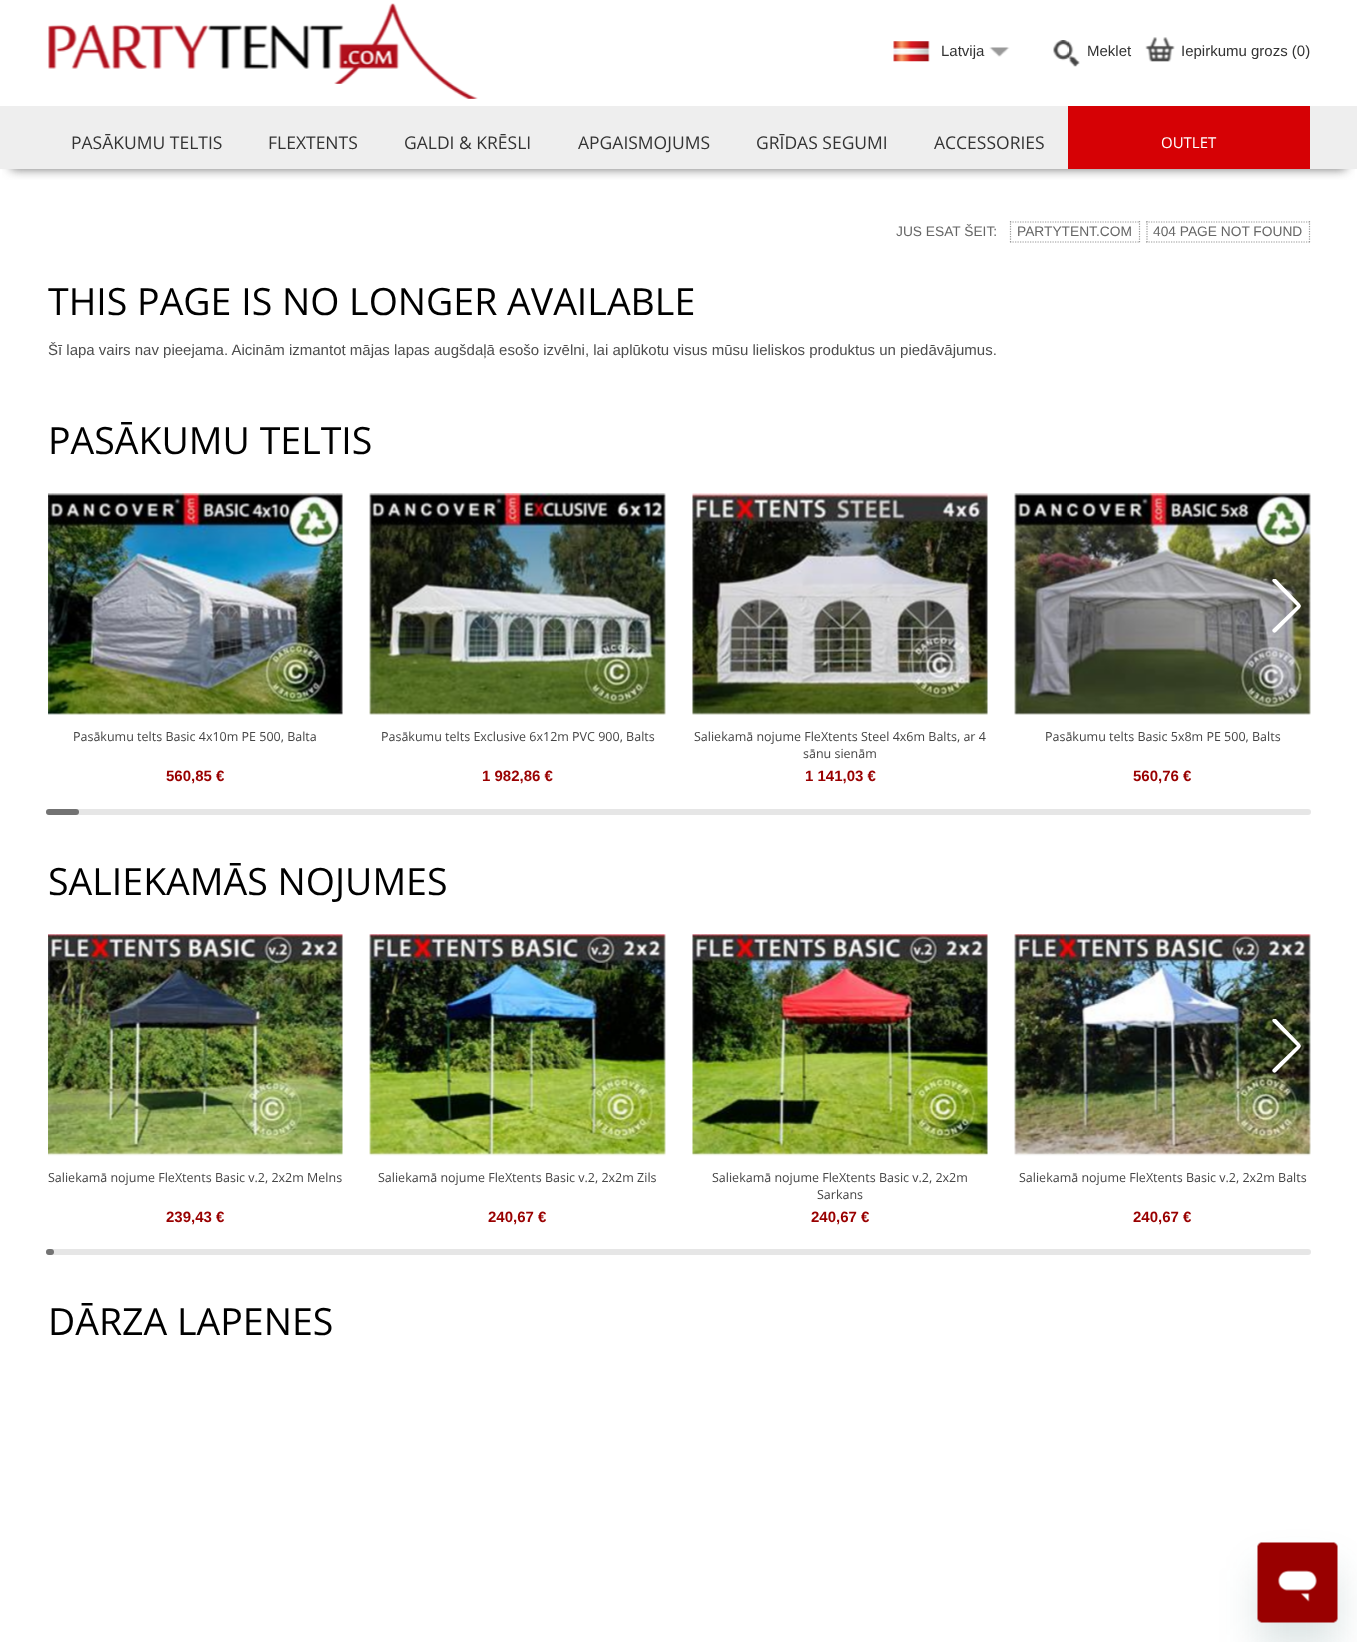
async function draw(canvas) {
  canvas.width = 1357;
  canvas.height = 1642;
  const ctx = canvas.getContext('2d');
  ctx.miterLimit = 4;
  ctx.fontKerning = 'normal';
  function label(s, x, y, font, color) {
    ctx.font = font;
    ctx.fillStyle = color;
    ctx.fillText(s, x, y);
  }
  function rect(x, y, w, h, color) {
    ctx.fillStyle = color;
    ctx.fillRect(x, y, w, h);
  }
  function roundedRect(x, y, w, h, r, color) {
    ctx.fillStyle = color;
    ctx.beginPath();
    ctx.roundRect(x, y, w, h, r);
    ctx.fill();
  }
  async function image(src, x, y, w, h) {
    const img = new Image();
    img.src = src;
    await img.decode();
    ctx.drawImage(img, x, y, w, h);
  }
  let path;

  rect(0, 0, 1357, 1642, '#fff');
  ctx.save();
  ctx.beginPath();
  ctx.rect(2, 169, 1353, 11);
  ctx.clip();
  ctx.fillStyle = '#3c3c3cbf';
  ctx.filter = 'blur(5.5px)';
  ctx.beginPath();
  ctx.rect(11, 23, 1335, 146);
  ctx.fill();
  ctx.filter = 'none';
  ctx.restore();
  rect(0, 106, 1357, 63, '#eee');
  await image('assets/img1.png', 48, 3, 430, 96);
  await image('assets/img2.png', 893, 41, 37, 21);
  label('Latvija', 941, 56, '15px Liberation Sans', '#333');
  await image('assets/img3.png', 989, 47, 21, 10);
  await image('assets/img4.png', 1053, 40, 27, 27);
  label('Meklet', 1087, 56, '15px Liberation Sans', '#333');
  await image('assets/img5.png', 1145, 37, 30, 25);
  label('Iepirkumu grozs (0)', 1181, 56, '15px Liberation Sans', '#333');
  label('PASĀKUMU TELTIS', 71, 149, '17.5px Open Sans', '#333');
  label('FLEXTENTS', 268, 149, '17.5px Open Sans', '#333');
  label('GALDI & KRĒSLI', 404, 149, '17.5px Open Sans', '#333');
  label('APGAISMOJUMS', 578, 149, '17.5px Open Sans', '#333');
  label('GRĪDAS SEGUMI', 756, 149, '17.5px Open Sans', '#333');
  label('ACCESSORIES', 934, 149, '17.5px Open Sans', '#333');
  rect(1068, 106, 242, 63, '#d60105');
  label('OUTLET', 1161, 148, '15px Open Sans', '#fff');
  label('JUS ESAT ŠEIT:', 896, 236, '13.75px Liberation Sans', '#666');
  path = new Path2D('M1010 222H1140');
  ctx.strokeStyle = '#999';
  ctx.lineWidth = 1.2;
  ctx.setLineDash([1.25, 1.25]);
  ctx.stroke(path);
  path = new Path2D('M1139.5 221V242.5');
  ctx.stroke(path);
  path = new Path2D('M1010 242H1140');
  ctx.stroke(path);
  path = new Path2D('M1010.5 221V242.5');
  ctx.stroke(path);
  label('PARTYTENT.COM', 1017, 236, '13.75px Liberation Sans', '#666');
  path = new Path2D('M1146 222H1310');
  ctx.stroke(path);
  path = new Path2D('M1309.5 221V242.5');
  ctx.stroke(path);
  path = new Path2D('M1146 242H1310');
  ctx.stroke(path);
  path = new Path2D('M1147 221V242.5');
  ctx.stroke(path);
  label('404 PAGE NOT FOUND', 1153, 236, '13.75px Liberation Sans', '#666');
  label('THIS PAGE IS NO LONGER AVAILABLE', 48, 315, '37.5px Open Sans', '#000');
  label('Šī lapa vairs nav pieejama. Aicinām izmantot mājas lapas augšdaļā esošo izvēlni, lai aplūkotu visus mūsu lieliskos produktus un piedāvājumus.', 48, 355, '15px Liberation Sans', '#4d4d4d');
  label('PASĀKUMU TELTIS', 48, 454, '37.5px Open Sans', '#000');
  await image('assets/img9.png', 1014, 493, 297, 222);
  ctx.fillStyle = '#fff';
  path = new Path2D('M1273 632C1272 631 1272 630 1273 629L1297 606L1273 582C1272 581 1272 580 1273 579C1274 579 1275 579 1276 579L1300 604L1301 606L1300 608L1276 632C1275 633 1274 633 1273 632Z');
  ctx.fill(path);
  await image('assets/img6.png', 48, 493, 295, 222);
  label('Pasākumu telts Basic 4x10m PE 500, Balta', 73, 741, '12.5px Open Sans', '#444');
  label('560,85 €', 166, 781, 'bold 15px Liberation Sans', '#900');
  await image('assets/img7.png', 369, 493, 297, 222);
  label('Pasākumu telts Exclusive 6x12m PVC 900, Balts', 381, 741, '12.5px Open Sans', '#444');
  label('1 982,86 €', 482, 781, 'bold 15px Liberation Sans', '#900');
  await image('assets/img8.png', 692, 493, 296, 222);
  label('Saliekamā nojume FleXtents Steel 4x6m Balts, ar 4', 694, 741, '12.5px Open Sans', '#444');
  label('sānu sienām', 803, 758, '12.5px Open Sans', '#444');
  label('1 141,03 €', 805, 781, 'bold 15px Liberation Sans', '#900');
  label('Pasākumu telts Basic 5x8m PE 500, Balts', 1045, 741, '12.5px Open Sans', '#444');
  label('560,76 €', 1133, 781, 'bold 15px Liberation Sans', '#900');
  roundedRect(46, 809, 1265, 6, 3, '#e6e6e6');
  roundedRect(46, 809, 33, 6, 3, '#00000080');
  label('SALIEKAMĀS NOJUMES', 48, 895, '37.5px Open Sans', '#000');
  await image('assets/img13.png', 1014, 934, 297, 222);
  ctx.fillStyle = '#fff';
  path = new Path2D('M1273 1072C1272 1071 1272 1070 1273 1069L1297 1046L1273 1022C1272 1021 1272 1020 1273 1019C1274 1019 1275 1019 1276 1019L1300 1044L1301 1046L1300 1048L1276 1072C1275 1073 1274 1073 1273 1072Z');
  ctx.fill(path);
  await image('assets/img10.png', 48, 934, 295, 222);
  label('Saliekamā nojume FleXtents Basic v.2, 2x2m Melns', 48, 1182, '12.5px Open Sans', '#444');
  label('239,43 €', 166, 1222, 'bold 15px Liberation Sans', '#900');
  await image('assets/img11.png', 369, 934, 297, 222);
  label('Saliekamā nojume FleXtents Basic v.2, 2x2m Zils', 378, 1182, '12.5px Open Sans', '#444');
  label('240,67 €', 488, 1222, 'bold 15px Liberation Sans', '#900');
  await image('assets/img12.png', 692, 934, 296, 222);
  label('Saliekamā nojume FleXtents Basic v.2, 2x2m', 712, 1182, '12.5px Open Sans', '#444');
  label('Sarkans', 817, 1199, '12.5px Open Sans', '#444');
  label('240,67 €', 811, 1222, 'bold 15px Liberation Sans', '#900');
  label('Saliekamā nojume FleXtents Basic v.2, 2x2m Balts', 1019, 1182, '12.5px Open Sans', '#444');
  label('240,67 €', 1133, 1222, 'bold 15px Liberation Sans', '#900');
  roundedRect(46, 1249, 1265, 6, 3, '#e6e6e6');
  roundedRect(46, 1249, 8, 6, 3, '#00000080');
  label('DĀRZA LAPENES', 48, 1335, '37.5px Open Sans', '#000');
  ctx.fillStyle = '#17494d26';
  ctx.filter = 'blur(19px)';
  ctx.beginPath();
  ctx.roundRect(1258, 1568, 80, 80, 5);
  ctx.fill();
  ctx.filter = 'none';
  await image('assets/img14.png', 1257, 1542, 81, 81);
}

draw(document.querySelector('canvas'));
